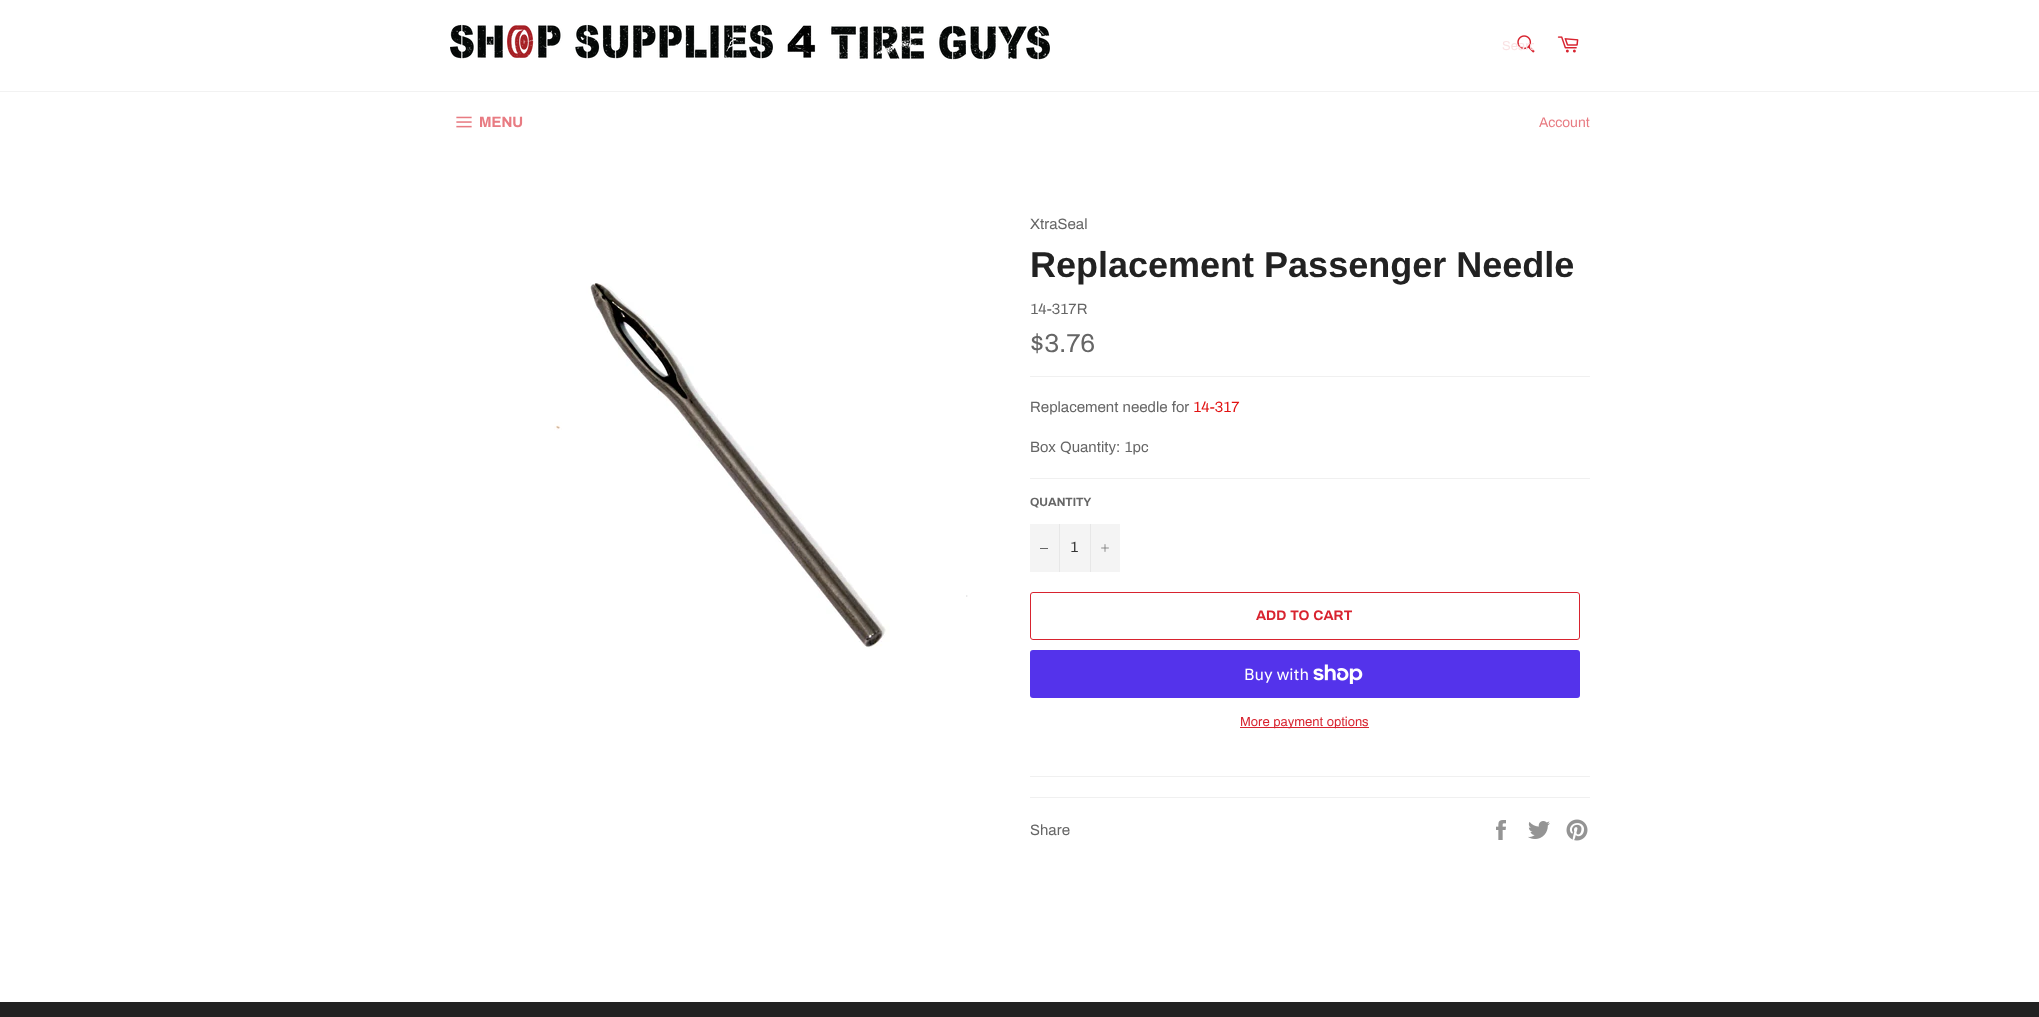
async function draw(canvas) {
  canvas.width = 2039;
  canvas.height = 1017;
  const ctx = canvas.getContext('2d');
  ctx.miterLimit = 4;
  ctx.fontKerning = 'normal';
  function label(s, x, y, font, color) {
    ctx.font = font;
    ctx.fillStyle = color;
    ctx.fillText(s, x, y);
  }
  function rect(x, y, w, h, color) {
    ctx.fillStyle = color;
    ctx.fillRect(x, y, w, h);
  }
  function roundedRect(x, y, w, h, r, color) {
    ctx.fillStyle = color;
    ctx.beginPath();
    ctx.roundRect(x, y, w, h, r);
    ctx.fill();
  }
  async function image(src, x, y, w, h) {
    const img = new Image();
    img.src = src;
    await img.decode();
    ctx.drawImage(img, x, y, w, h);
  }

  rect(0, 0, 2039, 1017, '#fff');
  await image('assets/img1.png', 450, 24, 600, 36);
  await image('assets/img2.png', 1517, 35, 18, 18);
  ctx.save();
  ctx.beginPath();
  ctx.rect(1502, 39, 32, 14);
  ctx.clip();
  label('Searc', 1502, 50, '13px Archivo', '#fae3e4');
  ctx.restore();
  await image('assets/img3.png', 1557, 36, 22, 17);
  rect(0, 91, 2039, 1, '#f2f2f2');
  await image('assets/img4.png', 456, 116, 16, 12);
  label('MENU', 479, 127, 'bold 15px Archivo', '#e87b82');
  label('Account', 1539, 127, '14px Archivo', '#e87b82');
  await image('assets/img5.png', 554, 283, 414, 366);
  label('XtraSeal', 1030, 229, '15px Archivo', '#666');
  label('Replacement Passenger Needle', 1030, 277, 'bold 36px Arimo', '#222');
  label('14-317R', 1030, 314, '15px Archivo', '#666');
  label('$3.76', 1030, 352, '26px Archivo', '#666');
  rect(1030, 376, 560, 1, '#f0f0f0');
  label('Replacement needle for', 1030, 412, '15px Archivo', '#666');
  label('14-317', 1193, 412, '15px Archivo', '#e21313');
  label('Box Quantity: 1pc', 1030, 452, '15px Archivo', '#666');
  rect(1030, 478, 560, 1, '#f0f0f0');
  label('QUANTITY', 1030, 506, 'bold 12px Archivo', '#666');
  rect(1030, 524, 90, 48, '#f4f4f4');
  rect(1059, 524, 1, 48, '#e7e7e7');
  rect(1040, 548, 8, 1, '#666');
  label('1', 1070, 552, '15px Archivo', '#333');
  rect(1090, 524, 1, 48, '#e7e7e7');
  await image('assets/img6.png', 1101, 544, 8, 8);
  ctx.beginPath();
  ctx.roundRect(1030.5, 592.5, 549, 47, 2.5);
  ctx.strokeStyle = '#d8232f';
  ctx.stroke();
  label('ADD TO CART', 1256, 620, 'bold 14px Archivo', '#d8232f');
  roundedRect(1030, 650, 550, 48, 3, '#5433eb');
  label('Buy with', 1244, 680, '16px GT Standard', '#fff');
  await image('assets/img7.png', 1313, 664, 50, 20);
  rect(1240, 727, 129, 1, '#d8232f');
  label('More payment options', 1240, 726, '13px Archivo', '#d8232f');
  rect(1030, 776, 560, 1, '#f0f0f0');
  rect(1030, 797, 560, 1, '#f0f0f0');
  label('Share', 1030, 835, '15px Archivo', '#666');
  await image('assets/img8.png', 1496, 820, 10, 20);
  await image('assets/img9.png', 1528, 821, 22, 18);
  await image('assets/img10.png', 1566, 819, 22, 22);
  rect(0, 1002, 2039, 15, '#222');
}

draw(document.querySelector('canvas'));
